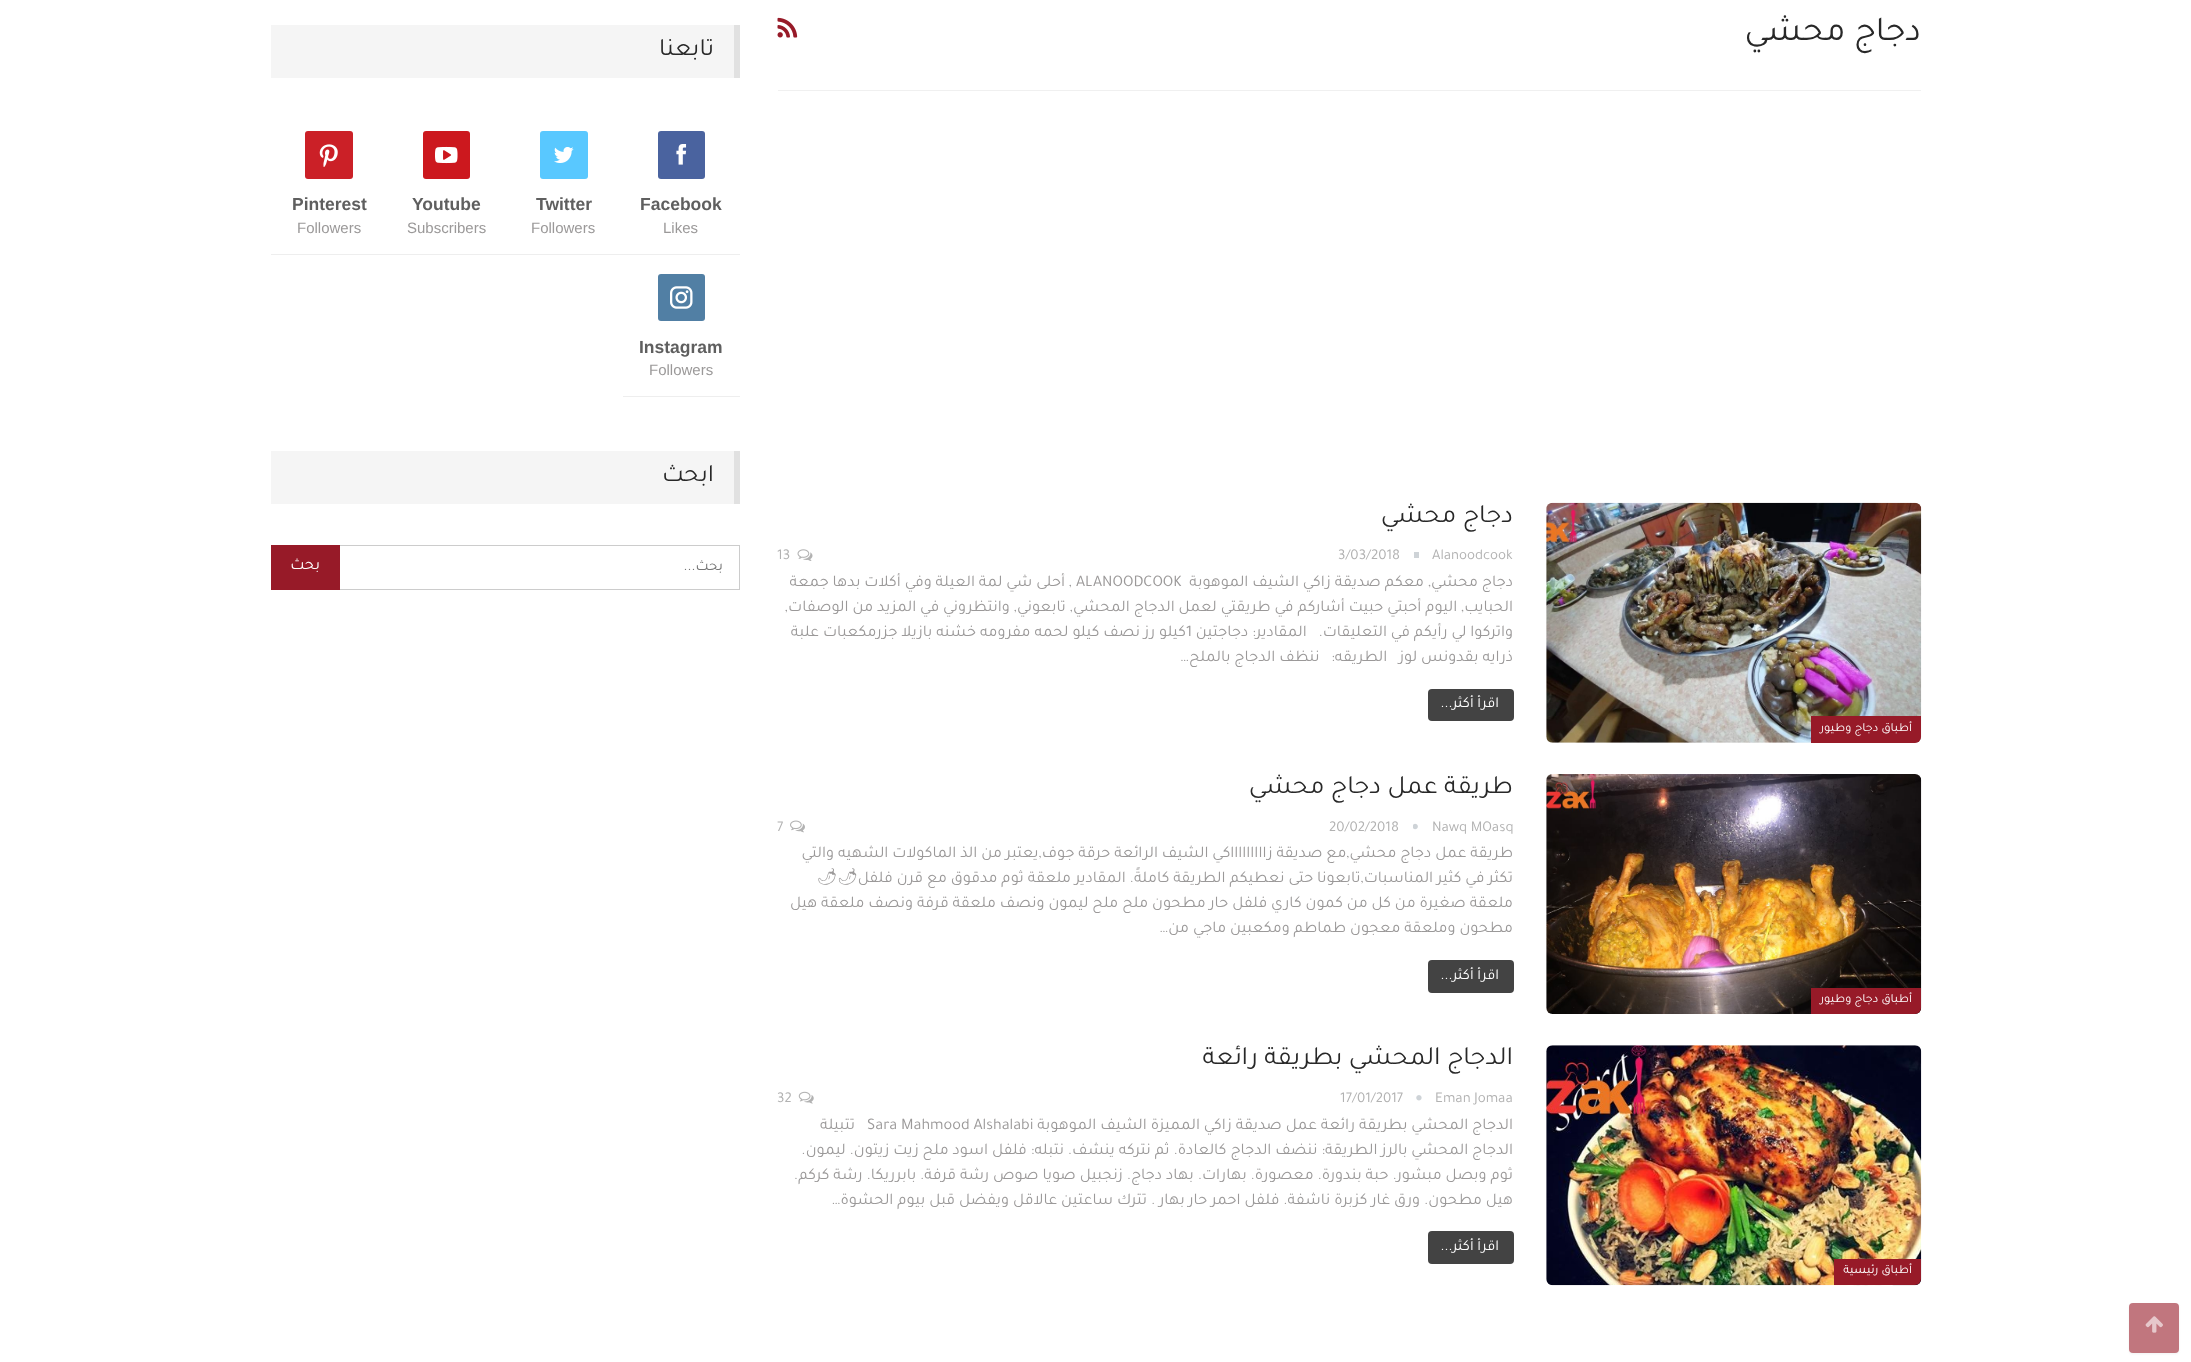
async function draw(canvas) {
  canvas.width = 2191;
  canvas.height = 1362;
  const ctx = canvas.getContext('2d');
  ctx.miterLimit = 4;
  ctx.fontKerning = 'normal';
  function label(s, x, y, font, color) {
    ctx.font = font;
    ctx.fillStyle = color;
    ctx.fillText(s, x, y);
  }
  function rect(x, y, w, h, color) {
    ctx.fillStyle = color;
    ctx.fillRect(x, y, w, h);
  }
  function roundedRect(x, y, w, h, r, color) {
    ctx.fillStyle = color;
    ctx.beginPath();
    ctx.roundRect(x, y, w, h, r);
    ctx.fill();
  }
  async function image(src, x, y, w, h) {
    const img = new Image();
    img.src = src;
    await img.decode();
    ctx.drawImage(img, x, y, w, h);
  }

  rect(0, 0, 2191, 1362, '#fff');
  rect(778, 90, 1143, 1, '#f0f0f0');
  ctx.direction = 'rtl';
  label('دجاج محشي', 1921, 40, '35px Tajawal', '#282828');
  await image('assets/img1.png', 777, 17, 21, 21);
  label('دجاج محشي', 1513, 522, '26.25px Tajawal', '#282828');
  ctx.direction = 'ltr';
  label('Alanoodcook', 1432, 559, '15px Tajawal', '#b2b2b2');
  rect(1414, 552, 5, 6, '#ced3d7');
  label('3/03/2018', 1338, 559, '15px Tajawal', '#b2b2b2');
  await image('assets/img2.png', 797, 549, 16, 12);
  label('13', 777, 559, '15px Tajawal', '#b2b2b2');
  ctx.direction = 'rtl';
  label('دجاج محشي, معكم صديقة زاكي الشيف الموهوبة', 1513, 586, '16.25px Tajawal', '#9b9999');
  ctx.direction = 'ltr';
  label('ALANOODCOOK', 1076, 586, '16.25px Tajawal', '#9b9999');
  ctx.direction = 'rtl';
  label(', أحلى شي لمة العيلة وفي أكلات بدها جمعة', 1072, 586, '16.25px Tajawal', '#9b9999');
  label('الحبايب, اليوم أحبتي حبيت أشاركم في طريقتي لعمل الدجاج المحشي, تابعوني, وانتظروني في المزيد من الوصفات,', 1513, 611, '16.25px Tajawal', '#9b9999');
  label('واتركوا لي رأيكم في التعليقات.   المقادير: دجاجتين', 1513, 636, '16.25px Tajawal', '#9b9999');
  ctx.direction = 'ltr';
  label('1', 1186, 636, '16.25px Tajawal', '#9b9999');
  ctx.direction = 'rtl';
  label('كيلو رز نصف كيلو لحمه مفرومه خشنه بازيلا جزرمكعبات علبة', 1186, 636, '16.25px Tajawal', '#9b9999');
  label('ذرايه بقدونس لوز   الطريقه:   ننظف الدجاج بالملح…', 1513, 661, '16.25px Tajawal', '#9b9999');
  roundedRect(1428, 689, 86, 32, 4, '#434343');
  label('اقرأ أكثر...', 1499, 707, '15px Tajawal', '#fff');
  roundedRect(1546, 503, 375, 240, 6, '#f5f5f5');
  await image('assets/img3.png', 1546, 502, 376, 241);
  ctx.fillStyle = '#971a28';
  ctx.beginPath();
  ctx.roundRect(1811, 716, 110, 27, [0, 0, 6, 0]);
  ctx.fill();
  label('أطباق دجاج وطيور', 1912, 731, '12.5px Tajawal', '#fff');
  label('طريقة عمل دجاج محشي', 1513, 793, '26.25px Tajawal', '#282828');
  ctx.direction = 'ltr';
  label('Nawq MOasq', 1432, 831, '15px Tajawal', '#b2b2b2');
  await image('assets/img4.png', 1413, 823, 5, 7);
  label('20/02/2018', 1329, 831, '15px Tajawal', '#b2b2b2');
  await image('assets/img5.png', 790, 820, 15, 13);
  label('7', 777, 831, '15px Tajawal', '#b2b2b2');
  ctx.direction = 'rtl';
  label('طريقة عمل دجاج محشي,مع صديقة زاااااااااكي الشيف الرائعة حرقة جوف,يعتبر من الذ الماكولات الشهيه والتي', 1513, 857, '16.25px Tajawal', '#9b9999');
  label('تكثر في كثير المناسبات,تابعونا حتى نعطيكم الطريقة كاملةً. المقادير ملعقة ثوم مدقوق مع قرن فلفل', 1513, 882, '16.25px Tajawal', '#9b9999');
  label('🌶🌶', 858, 882, '16.25px Noto Emoji', '#9b9999');
  label('ملعقة صغيرة من كل من كمون كاري فلفل حار مطحون ملح ملح ليمون ونصف ملعقة قرفة ونصف ملعقة هيل', 1513, 907, '16.25px Tajawal', '#9b9999');
  label('مطحون وملعقة معجون طماطم ومكعبين ماجي من…', 1513, 932, '16.25px Tajawal', '#9b9999');
  roundedRect(1428, 960, 86, 33, 4, '#434343');
  label('اقرأ أكثر...', 1499, 979, '15px Tajawal', '#fff');
  roundedRect(1546, 774, 375, 240, 6, '#f5f5f5');
  await image('assets/img6.png', 1546, 774, 376, 240);
  ctx.fillStyle = '#971a28';
  ctx.beginPath();
  ctx.roundRect(1811, 988, 110, 26, [0, 0, 6, 0]);
  ctx.fill();
  label('أطباق دجاج وطيور', 1912, 1002, '12.5px Tajawal', '#fff');
  label('الدجاج المحشي بطريقة رائعة', 1513, 1064, '26.25px Tajawal', '#282828');
  ctx.direction = 'ltr';
  label('Eman Jomaa', 1435, 1102, '15px Tajawal', '#b2b2b2');
  await image('assets/img7.png', 1416, 1095, 6, 6);
  label('17/01/2017', 1340, 1102, '15px Tajawal', '#b2b2b2');
  await image('assets/img8.png', 798, 1091, 16, 13);
  label('32', 777, 1102, '15px Tajawal', '#b2b2b2');
  ctx.direction = 'rtl';
  label('الدجاج المحشي بطريقة رائعة عمل صديقة زاكي المميزة الشيف الموهوبة', 1513, 1129, '16.25px Tajawal', '#9b9999');
  ctx.direction = 'ltr';
  label('Sara Mahmood Alshalabi', 867, 1129, '16.25px Tajawal', '#9b9999');
  ctx.direction = 'rtl';
  label('تتبيلة', 855, 1129, '16.25px Tajawal', '#9b9999');
  label('الدجاج المحشي بالرز الطريقة: ننضف الدجاج كالعادة. ثم نتركه ينشف. نتبله: فلفل اسود ملح زيت زيتون. ليمون.', 1513, 1154, '16.25px Tajawal', '#9b9999');
  label('ثوم وبصل مبشور. حبة بندورة. معصورة. بهارات. بهاد دجاج. زنجبيل صويا صوص رشة قرفة. بابرريكا. رشة كركم.', 1513, 1179, '16.25px Tajawal', '#9b9999');
  label('هيل مطحون. ورق غار كزبرة ناشفة. فلفل احمر حار بهار . تترك ساعتين عالاقل ويفضل قبل بيوم الحشوة…', 1513, 1204, '16.25px Tajawal', '#9b9999');
  roundedRect(1428, 1231, 86, 33, 4, '#434343');
  label('اقرأ أكثر...', 1499, 1250, '15px Tajawal', '#fff');
  roundedRect(1546, 1045, 375, 240, 6, '#f5f5f5');
  await image('assets/img9.png', 1546, 1045, 376, 241);
  ctx.fillStyle = '#971a28';
  ctx.beginPath();
  ctx.roundRect(1834, 1259, 87, 26, [0, 0, 6, 0]);
  ctx.fill();
  label('أطباق رئيسية', 1912, 1273, '12.5px Tajawal', '#fff');
  rect(271, 25, 463, 53, '#f5f5f5');
  rect(734, 25, 6, 53, '#e1e1e1');
  label('تابعنا', 714, 55, '25px Tajawal', '#282828');
  rect(271, 254, 469, 1, '#eee');
  roundedRect(658, 131, 47, 48, 3, '#4a639f');
  await image('assets/img10.png', 676, 144, 11, 21);
  ctx.direction = 'ltr';
  label('Facebook', 640, 210, 'bold 17.5px Liberation Sans', '#5f5f5f');
  label('Likes', 663, 233, '15px Liberation Sans', '#9b9999');
  roundedRect(540, 131, 48, 48, 3, '#59c8ff');
  await image('assets/img11.png', 554, 147, 20, 16);
  label('Twitter', 536, 210, 'bold 17.5px Liberation Sans', '#5f5f5f');
  label('Followers', 531, 233, '15px Liberation Sans', '#9b9999');
  roundedRect(423, 131, 47, 48, 3, '#cc181e');
  await image('assets/img12.png', 435, 146, 23, 18);
  label('Youtube', 412, 210, 'bold 17.5px Liberation Sans', '#5f5f5f');
  label('Subscribers', 407, 233, '15px Liberation Sans', '#9b9999');
  roundedRect(305, 131, 48, 48, 3, '#cb2027');
  await image('assets/img13.png', 319, 144, 19, 23);
  label('Pinterest', 292, 210, 'bold 17.5px Liberation Sans', '#5f5f5f');
  label('Followers', 297, 233, '15px Liberation Sans', '#9b9999');
  rect(623, 396, 117, 1, '#eee');
  roundedRect(658, 274, 47, 47, 3, '#517fa4');
  await image('assets/img14.png', 670, 286, 23, 23);
  label('Instagram', 639, 353, 'bold 17.5px Liberation Sans', '#5f5f5f');
  label('Followers', 649, 375, '15px Liberation Sans', '#9b9999');
  rect(271, 451, 463, 53, '#f5f5f5');
  rect(734, 451, 6, 53, '#e1e1e1');
  ctx.direction = 'rtl';
  label('ابحث', 714, 481, '25px Tajawal', '#282828');
  ctx.strokeStyle = '#ccc';
  ctx.strokeRect(271.5, 545.5, 468, 44);
  label('بحث...', 723, 570, '15px Tajawal', '#757575');
  rect(271, 545, 69, 45, '#971a28');
  label('بحث', 320, 569, '16.25px Tajawal', '#fff');
  ctx.fillStyle = '#66666617';
  ctx.filter = 'blur(1px)';
  ctx.beginPath();
  ctx.roundRect(2129, 1304, 50, 50, 4);
  ctx.fill();
  ctx.filter = 'none';
  roundedRect(2129, 1303, 50, 50, 4, '#c1767e');
  await image('assets/img15.png', 2145, 1316, 18, 17);
}

draw(document.querySelector('canvas'));
